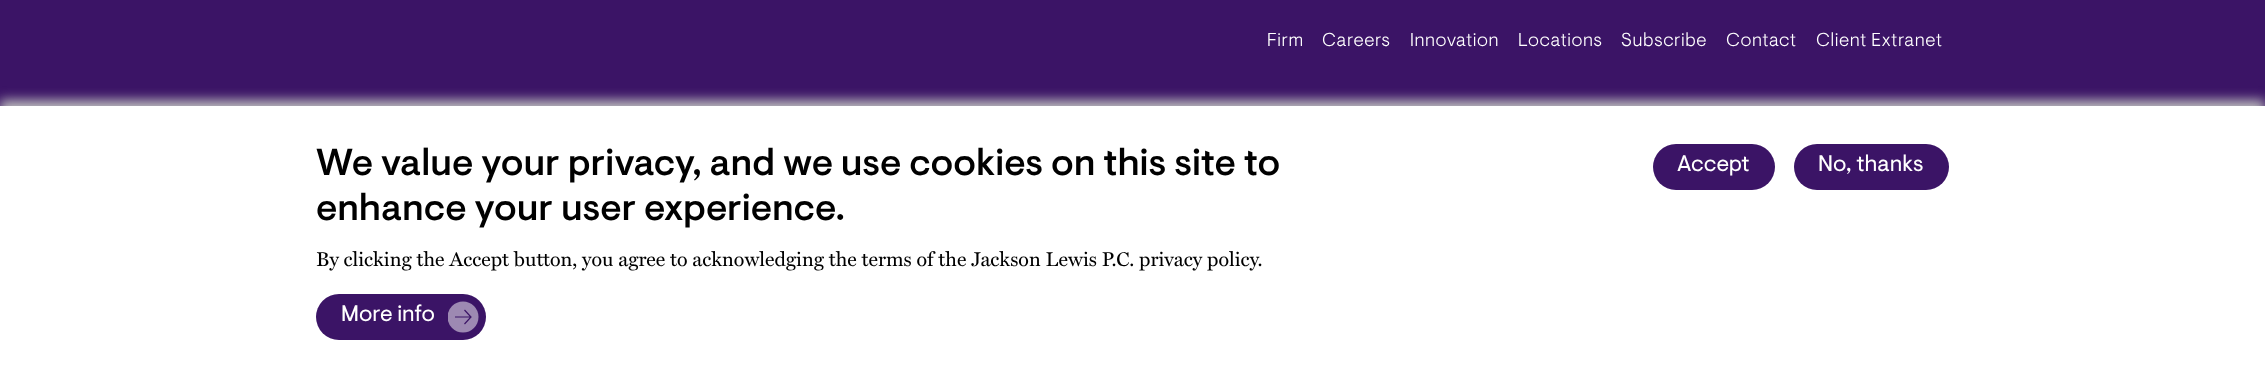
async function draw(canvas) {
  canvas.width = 2265;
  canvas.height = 385;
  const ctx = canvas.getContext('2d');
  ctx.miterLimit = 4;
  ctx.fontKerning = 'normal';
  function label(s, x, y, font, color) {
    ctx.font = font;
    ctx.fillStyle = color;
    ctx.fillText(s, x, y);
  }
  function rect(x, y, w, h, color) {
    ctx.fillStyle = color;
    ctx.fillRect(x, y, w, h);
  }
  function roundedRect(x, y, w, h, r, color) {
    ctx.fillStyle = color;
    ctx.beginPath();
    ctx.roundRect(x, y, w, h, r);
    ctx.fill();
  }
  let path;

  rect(0, 0, 2265, 385, '#3b1466');
  ctx.letterSpacing = '0.6px';
  label('Firm', 1267, 46, '300 18.75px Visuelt', '#fff');
  label('Careers', 1322, 46, '300 18.75px Visuelt', '#fff');
  label('Innovation', 1410, 46, '300 18.75px Visuelt', '#fff');
  label('Locations', 1518, 46, '300 18.75px Visuelt', '#fff');
  label('Subscribe', 1621, 46, '300 18.75px Visuelt', '#fff');
  label('Contact', 1726, 46, '300 18.75px Visuelt', '#fff');
  label('Client Extranet', 1816, 46, '300 18.75px Visuelt', '#fff');
  ctx.fillStyle = '#bcbcbc';
  ctx.filter = 'blur(6px)';
  ctx.beginPath();
  ctx.rect(0, 100, 2265, 279);
  ctx.fill();
  ctx.filter = 'none';
  rect(0, 106, 2265, 279, '#fff');
  ctx.letterSpacing = '0px';
  label('We value your privacy, and we use cookies on this site to', 316, 175, '500 37.5px Visuelt', '#000');
  label('enhance your user experience.', 316, 220, '500 37.5px Visuelt', '#000');
  label('By clicking the Accept button, you agree to acknowledging the terms of the Jackson Lewis P.C. privacy policy.', 316, 266, '20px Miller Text', '#000');
  roundedRect(316, 294, 170, 46, 23, '#3b1466');
  label('More info', 341, 321, '22.5px Visuelt', '#fff');
  ctx.save();
  ctx.beginPath();
  ctx.rect(448, 301, 31, 32);
  ctx.clip();
  ctx.fillStyle = '#9d89b2';
  ctx.beginPath();
  ctx.arc(463, 317, 15.5, 0, 2 * Math.PI);
  ctx.fill();
  ctx.restore();
  path = new Path2D('M464.5 310L471 317L464.5 324M455 317H471');
  ctx.strokeStyle = '#3b1466';
  ctx.lineWidth = 1.2;
  ctx.stroke(path);
  roundedRect(1653, 144, 122, 46, 23, '#3b1466');
  label('Accept', 1677, 171, '22.5px Visuelt', '#fff');
  roundedRect(1794, 144, 155, 46, 23, '#3b1466');
  label('No, thanks', 1818, 171, '22.5px Visuelt', '#fff');
}

draw(document.querySelector('canvas'));
